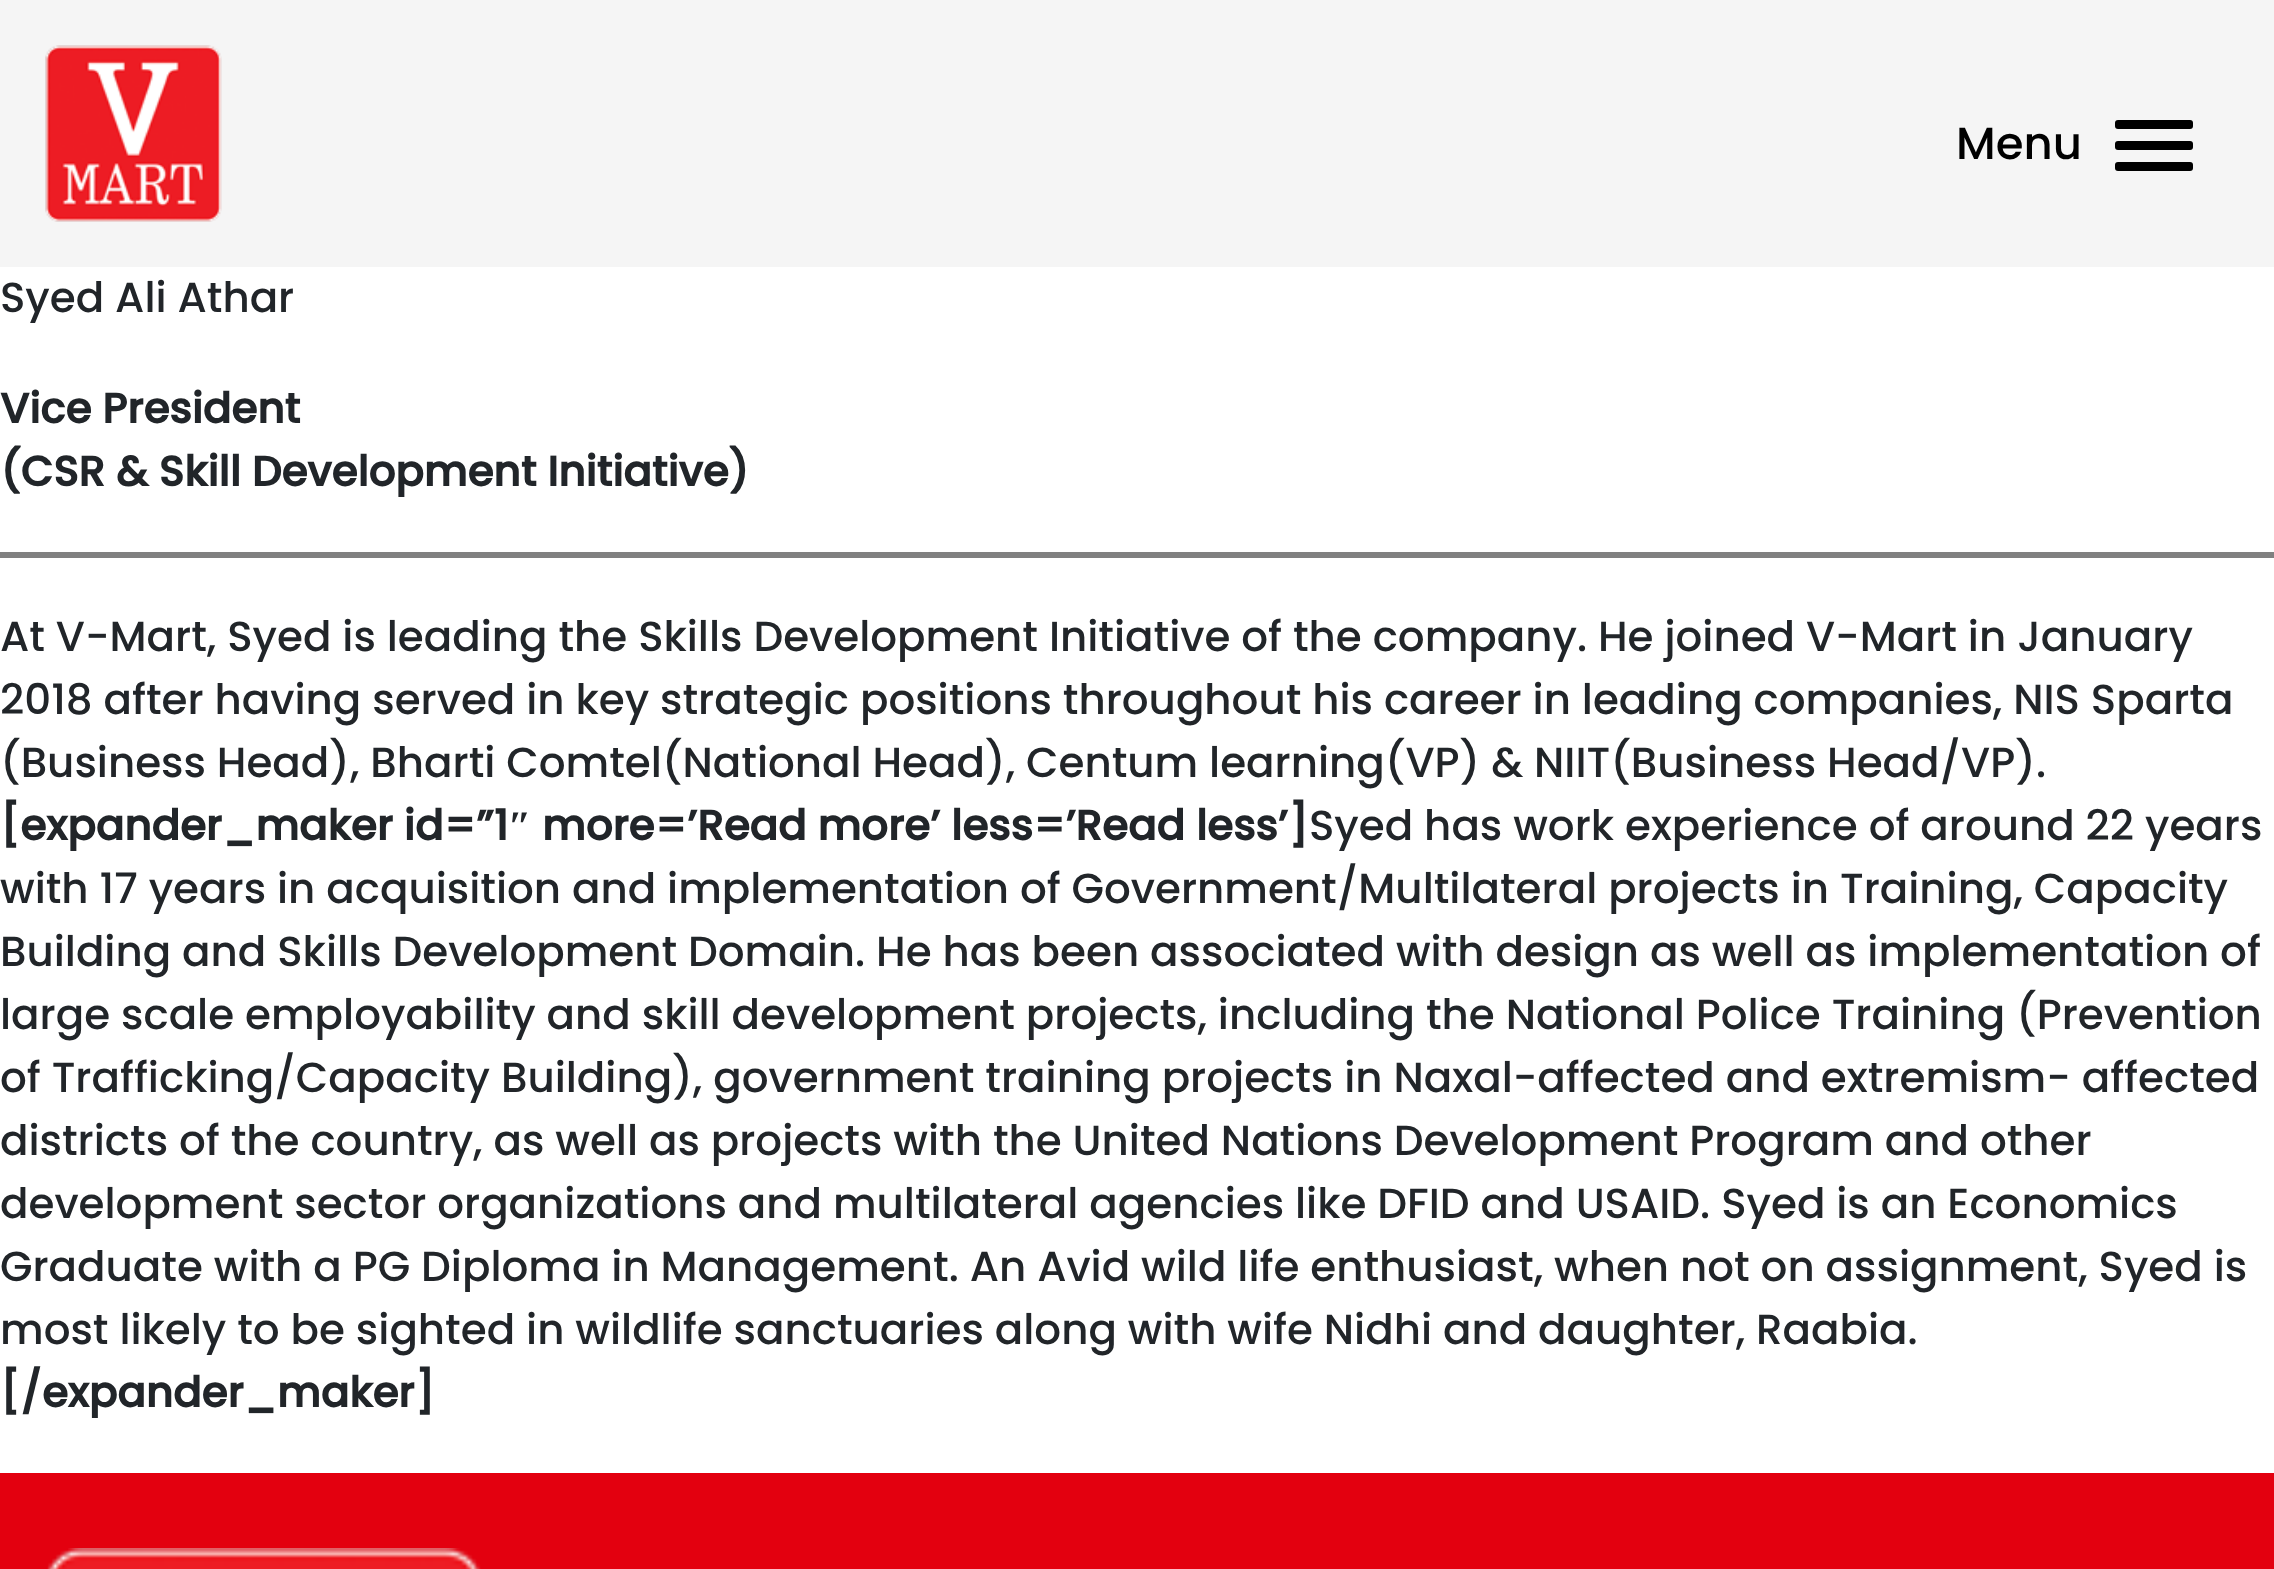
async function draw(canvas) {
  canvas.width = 2274;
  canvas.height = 1569;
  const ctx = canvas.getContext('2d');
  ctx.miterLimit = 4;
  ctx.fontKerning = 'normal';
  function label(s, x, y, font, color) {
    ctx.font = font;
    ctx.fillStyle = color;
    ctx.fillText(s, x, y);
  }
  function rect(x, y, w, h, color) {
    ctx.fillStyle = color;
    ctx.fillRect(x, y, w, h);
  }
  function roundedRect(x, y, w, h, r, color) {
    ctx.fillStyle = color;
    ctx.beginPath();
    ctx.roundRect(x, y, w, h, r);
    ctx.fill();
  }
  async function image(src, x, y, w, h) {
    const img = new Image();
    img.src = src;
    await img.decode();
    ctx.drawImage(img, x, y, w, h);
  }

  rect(0, 0, 2274, 1569, '#fff');
  rect(0, 0, 2274, 267, '#f5f5f5');
  await image('assets/img1.png', 45, 45, 177, 177);
  label('Menu', 1956, 159, '500 45px Poppins', '#000');
  roundedRect(2115, 141, 78, 9, 3, '#000');
  roundedRect(2115, 120, 78, 9, 3, '#000');
  roundedRect(2115, 162, 78, 9, 3, '#000');
  label('Syed Ali Athar', 0, 312, '500 42px Poppins', '#212529');
  label('Vice President', 0, 423, 'bold 42px Poppins', '#212529');
  label('(CSR & Skill Development Initiative)', 0, 486, 'bold 42px Poppins', '#212529');
  rect(0, 552, 2274, 6, '#808080');
  label('At V-Mart, Syed is leading the Skills Development Initiative of the company. He joined V-Mart in January', 0, 651, '500 42px Poppins', '#212529');
  label('2018 after having served in key strategic positions throughout his career in leading companies, NIS Sparta', 0, 714, '500 42px Poppins', '#212529');
  label('(Business Head), Bharti Comtel(National Head), Centum learning(VP) & NIIT(Business Head/VP).', 0, 777, '500 42px Poppins', '#212529');
  label('[expander_maker id=”1', 0, 840, 'bold 42px Poppins', '#212529');
  label('″', 508, 840, 'bold 42px Liberation Serif', '#212529');
  label('more=’Read more’ less=’Read less’]', 542, 840, 'bold 42px Poppins', '#212529');
  label('Syed has work experience of around 22 years', 1309, 840, '500 42px Poppins', '#212529');
  label('with 17 years in acquisition and implementation of Government/Multilateral projects in Training, Capacity', 0, 903, '500 42px Poppins', '#212529');
  label('Building and Skills Development Domain. He has been associated with design as well as implementation of', 0, 966, '500 42px Poppins', '#212529');
  label('large scale employability and skill development projects, including the National Police Training (Prevention', 0, 1029, '500 42px Poppins', '#212529');
  label('of Trafficking/Capacity Building), government training projects in Naxal-affected and extremism- affected', 0, 1092, '500 42px Poppins', '#212529');
  label('districts of the country, as well as projects with the United Nations Development Program and other', 0, 1155, '500 42px Poppins', '#212529');
  label('development sector organizations and multilateral agencies like DFID and USAID. Syed is an Economics', 0, 1218, '500 42px Poppins', '#212529');
  label('Graduate with a PG Diploma in Management. An Avid wild life enthusiast, when not on assignment, Syed is', 0, 1281, '500 42px Poppins', '#212529');
  label('most likely to be sighted in wildlife sanctuaries along with wife Nidhi and daughter, Raabia.', 0, 1344, '500 42px Poppins', '#212529');
  label('[/expander_maker]', 0, 1407, 'bold 42px Poppins', '#212529');
  rect(0, 1473, 2274, 96, '#e3000f');
  await image('assets/img2.png', 47, 1548, 434, 21);
}

draw(document.querySelector('canvas'));
